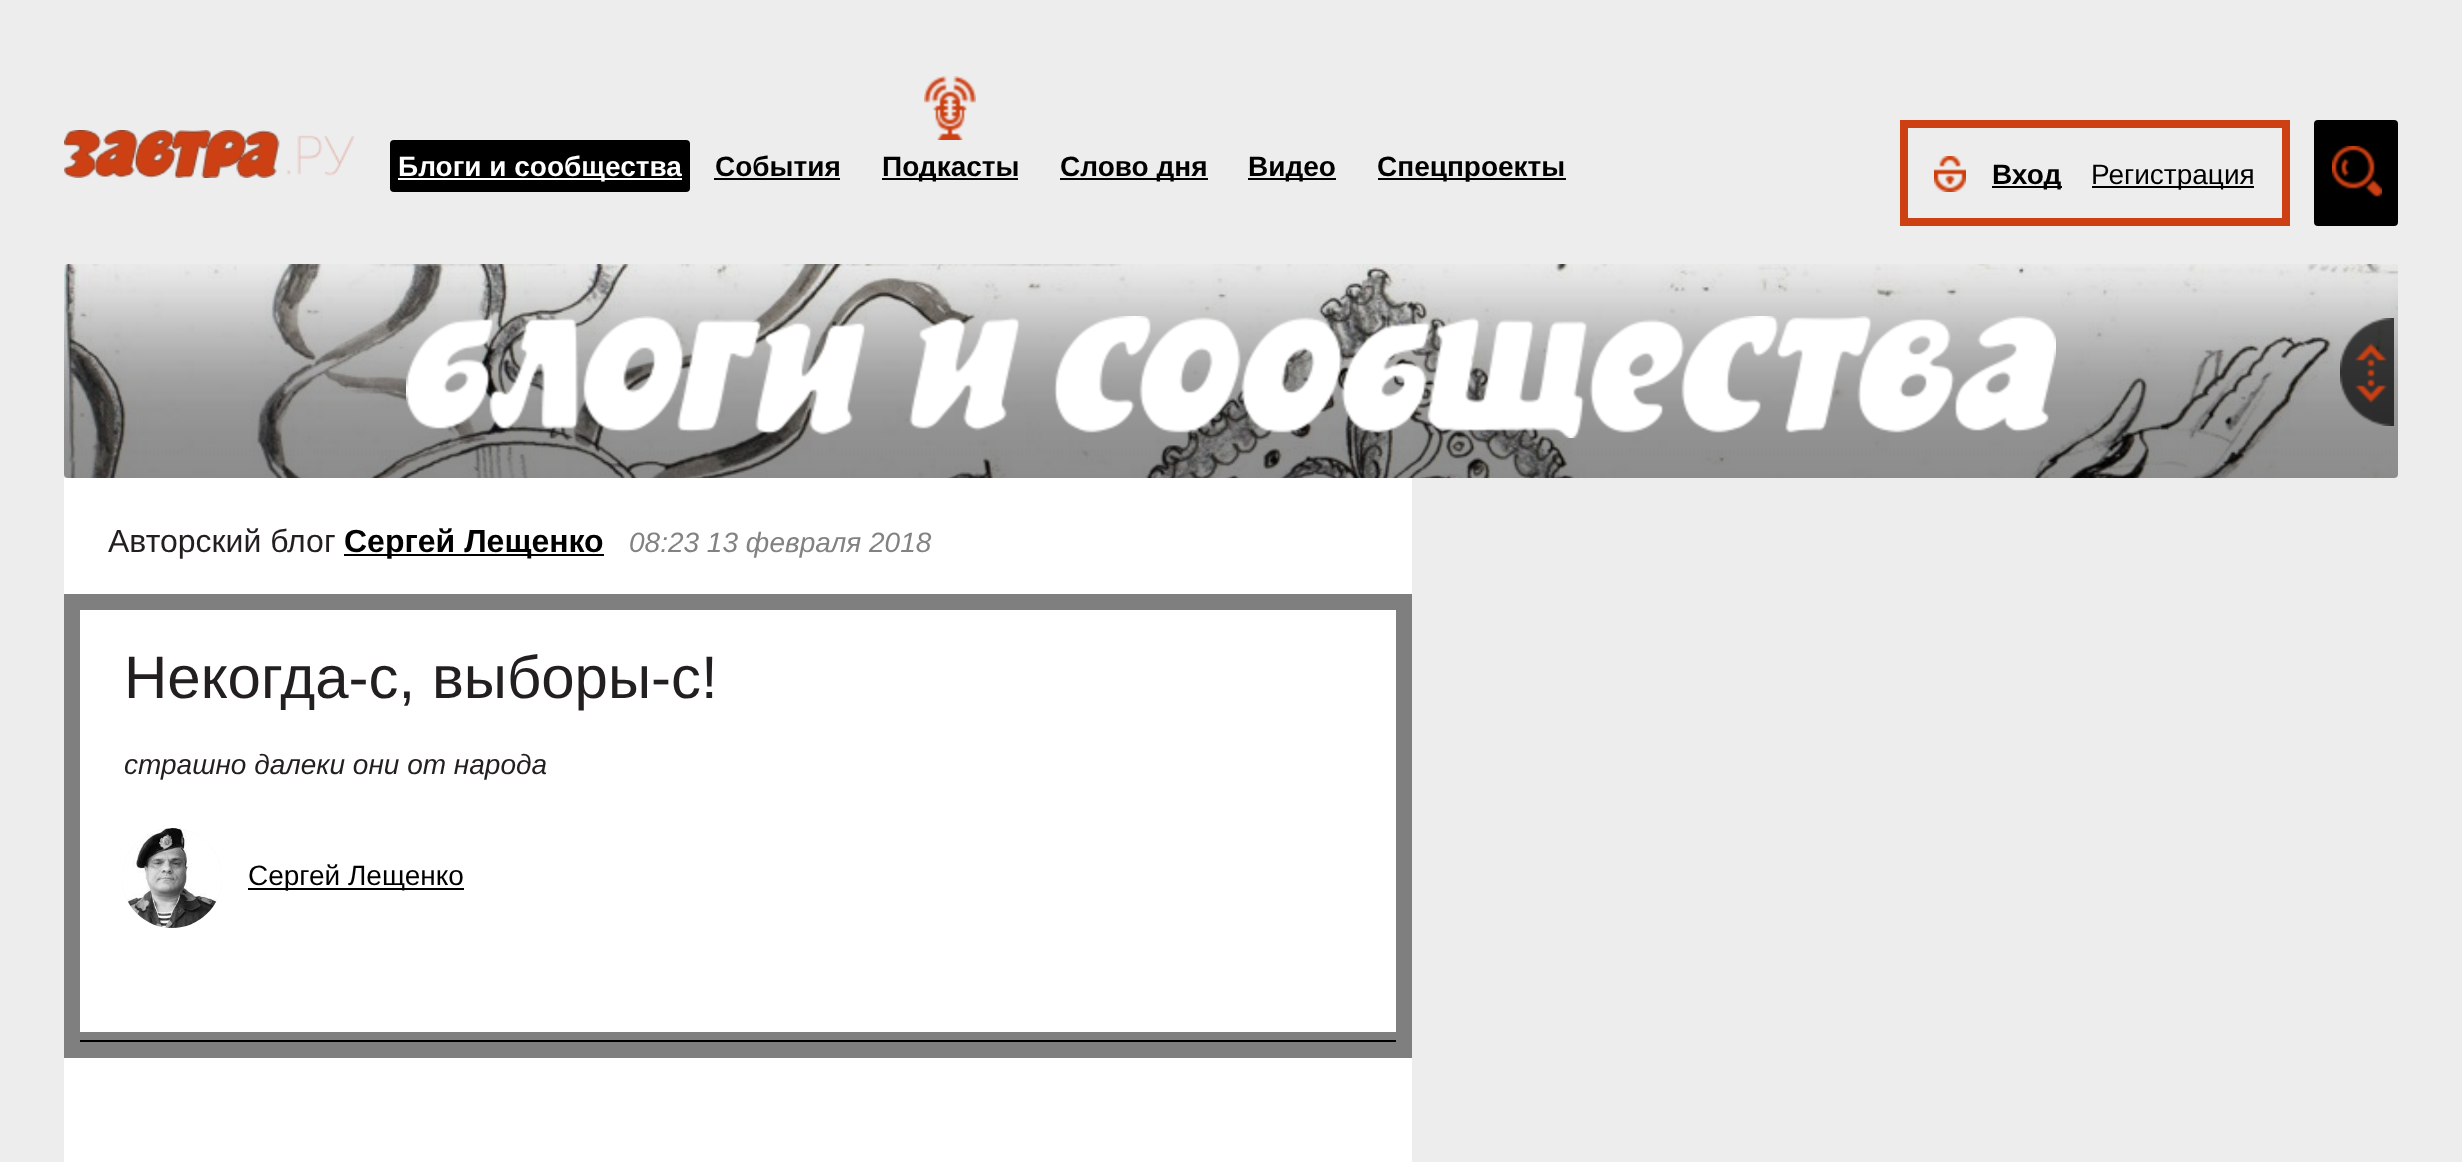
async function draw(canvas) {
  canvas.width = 2462;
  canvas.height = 1162;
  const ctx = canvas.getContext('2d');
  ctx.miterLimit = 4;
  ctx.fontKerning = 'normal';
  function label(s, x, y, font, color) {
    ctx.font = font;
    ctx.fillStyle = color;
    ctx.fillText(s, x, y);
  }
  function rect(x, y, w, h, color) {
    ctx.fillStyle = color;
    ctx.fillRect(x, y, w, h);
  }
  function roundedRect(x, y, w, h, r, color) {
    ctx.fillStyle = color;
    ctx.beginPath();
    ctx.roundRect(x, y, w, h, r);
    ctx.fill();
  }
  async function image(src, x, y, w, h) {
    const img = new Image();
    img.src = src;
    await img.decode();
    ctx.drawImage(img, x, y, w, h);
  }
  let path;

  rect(0, 0, 2462, 1162, '#ededed');
  await image('assets/img1.png', 64, 130, 290, 48);
  roundedRect(390, 140, 300, 52, 4, '#000');
  rect(398, 178, 284, 2, '#fff');
  label('Блоги и сообщества', 398, 176, 'bold 28px Liberation Sans', '#fff');
  label('События', 715, 176, 'bold 28px Liberation Sans', '#000');
  rect(714, 178, 126, 2, '#000');
  await image('assets/img2.png', 924, 76, 52, 64);
  rect(882, 178, 136, 2, '#000');
  label('Подкасты', 882, 176, 'bold 28px Liberation Sans', '#000');
  rect(1060, 178, 148, 2, '#000');
  label('Слово дня', 1060, 176, 'bold 28px Liberation Sans', '#000');
  rect(1248, 178, 88, 2, '#000');
  label('Видео', 1248, 176, 'bold 28px Liberation Sans', '#000');
  rect(1378, 178, 188, 2, '#000');
  label('Спецпроекты', 1377, 176, 'bold 28px Liberation Sans', '#000');
  ctx.beginPath();
  ctx.rect(1904, 124, 382, 98);
  ctx.strokeStyle = '#cc4014';
  ctx.lineWidth = 8;
  ctx.stroke();
  await image('assets/img3.png', 1934, 156, 32, 36);
  rect(1992, 186, 70, 2, '#000');
  label('Вход', 1992, 184, 'bold 28px Liberation Sans', '#000');
  rect(2092, 186, 162, 2, '#000');
  label('Регистрация', 2091, 184, '28px Liberation Sans', '#000');
  roundedRect(2314, 120, 84, 106, 4, '#000');
  await image('assets/img4.png', 2332, 146, 50, 51);
  await image('assets/img5.png', 64, 264, 2334, 214);
  await image('assets/img6.png', 64, 264, 2334, 214);
  await image('assets/img7.png', 406, 316, 1650, 122);
  await image('assets/img8.png', 2340, 318, 54, 108);
  rect(64, 478, 1348, 116, '#fff');
  label('Авторский блог', 108, 552, '32px Liberation Sans', '#231f20');
  rect(344, 554, 260, 2, '#000');
  label('Сергей Лещенко', 344, 552, 'bold 32px Liberation Sans', '#000');
  label('08:23 13 февраля 2018', 629, 552, 'italic 28px Liberation Sans', '#828282');
  rect(80, 610, 1316, 422, '#fff');
  path = new Path2D('M72 602H1404V1050H72Z');
  ctx.strokeStyle = '#7f7f7f';
  ctx.lineWidth = 16;
  ctx.stroke(path);
  label('Некогда-с, выборы-с!', 124, 698, '60px Liberation Sans', '#231f20');
  label('страшно далеки они от народа', 124, 774, 'italic 28px Liberation Sans', '#231f20');
  ctx.fillStyle = '#f2f2f2';
  ctx.beginPath();
  ctx.arc(172, 878, 53, 0, 2 * Math.PI);
  ctx.fill();
  ctx.strokeStyle = '#fff';
  ctx.lineWidth = 6;
  ctx.stroke();
  await image('assets/img9.png', 122, 828, 100, 100);
  rect(248, 888, 216, 2, '#000');
  label('Сергей Лещенко', 248, 885, '28px Liberation Sans', '#000');
  rect(80, 1040, 1316, 2, '#000');
  rect(80, 1032, 1316, 8, '#7f7f7f');
  rect(64, 1058, 1348, 104, '#fff');
}

draw(document.querySelector('canvas'));
